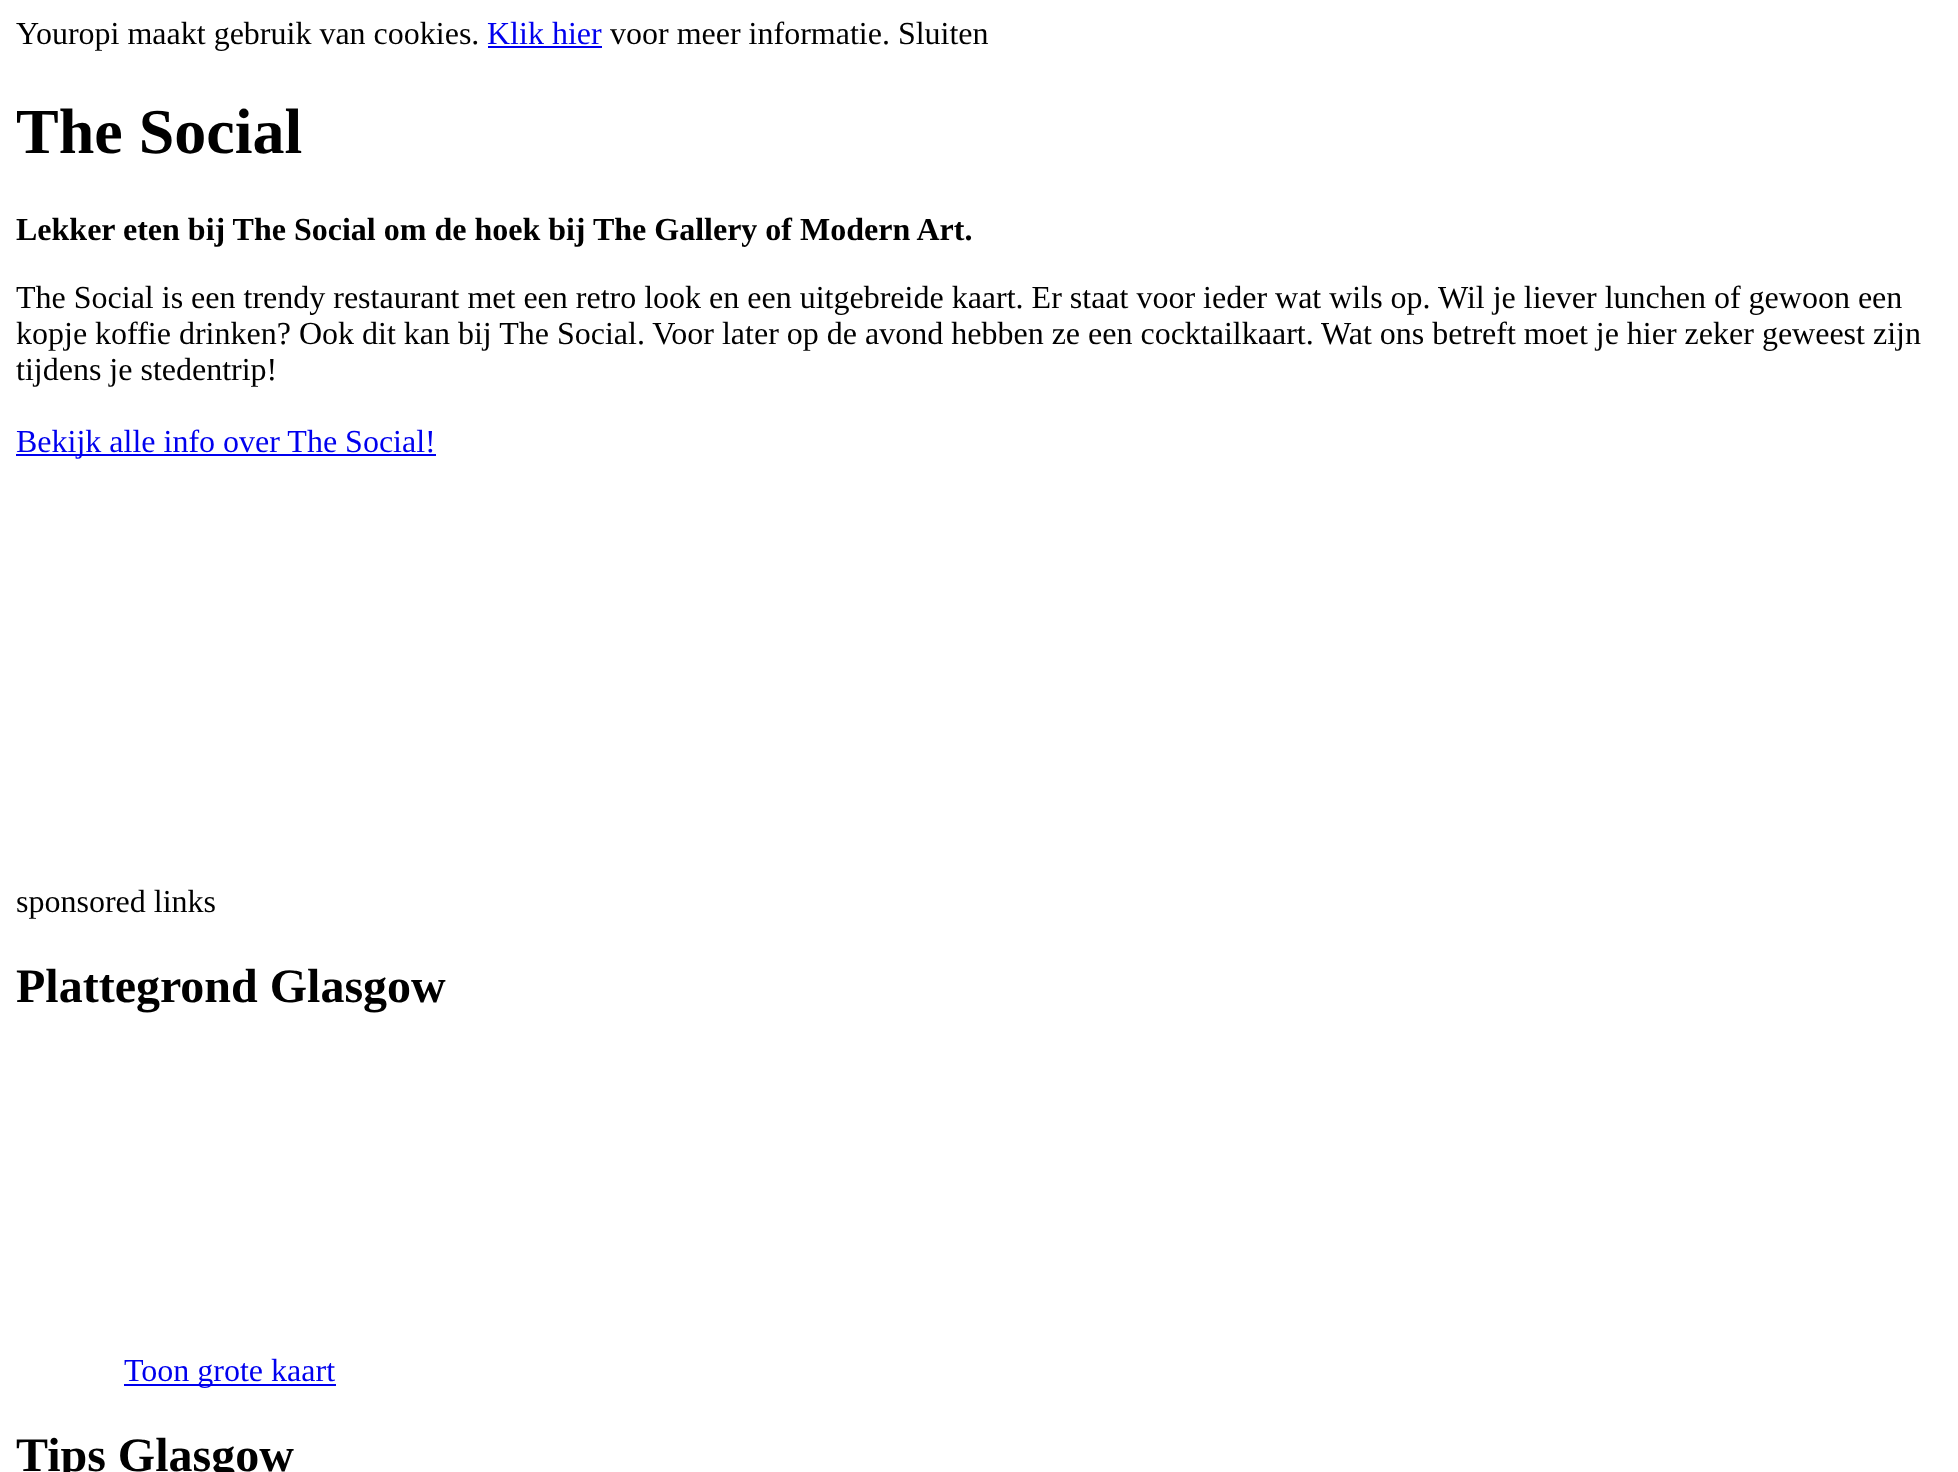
async function draw(canvas) {
  canvas.width = 1958;
  canvas.height = 1472;
  const ctx = canvas.getContext('2d');
  ctx.miterLimit = 4;
  ctx.fontKerning = 'normal';
  function label(s, x, y, font, color) {
    ctx.font = font;
    ctx.fillStyle = color;
    ctx.fillText(s, x, y);
  }
  function rect(x, y, w, h, color) {
    ctx.fillStyle = color;
    ctx.fillRect(x, y, w, h);
  }

  rect(0, 0, 1958, 1472, '#fff');
  label('Youropi maakt gebruik van cookies.', 16, 44, '32px Liberation Serif', '#000');
  label('Klik hier', 487, 44, '32px Liberation Serif', '#00e');
  rect(488, 46, 114, 2, '#00e');
  label('voor meer informatie. Sluiten', 610, 44, '32px Liberation Serif', '#000');
  label('The Social', 16, 153, 'bold 64px Liberation Serif', '#000');
  label('Lekker eten bij The Social om de hoek bij The Gallery of Modern Art.', 16, 240, 'bold 32px Liberation Serif', '#000');
  label('The Social is een trendy restaurant met een retro look en een uitgebreide kaart. Er staat voor ieder wat wils op. Wil je liever lunchen of gewoon een', 16, 308, '32px Liberation Serif', '#000');
  label('kopje koffie drinken? Ook dit kan bij The Social. Voor later op de avond hebben ze een cocktailkaart. Wat ons betreft moet je hier zeker geweest zijn', 16, 344, '32px Liberation Serif', '#000');
  label('tijdens je stedentrip!', 16, 380, '32px Liberation Serif', '#000');
  rect(16, 454, 420, 2, '#00e');
  label('Bekijk alle info over The Social!', 16, 452, '32px Liberation Serif', '#00e');
  label('sponsored links', 16, 912, '32px Liberation Serif', '#000');
  label('Plattegrond Glasgow', 16, 1002, 'bold 48px Liberation Serif', '#000');
  rect(124, 1384, 212, 2, '#00e');
  label('Toon grote kaart', 124, 1381, '32px Liberation Serif', '#00e');
  label('Tips Glasgow', 16, 1471, 'bold 48px Liberation Serif', '#000');
}

draw(document.querySelector('canvas'));
